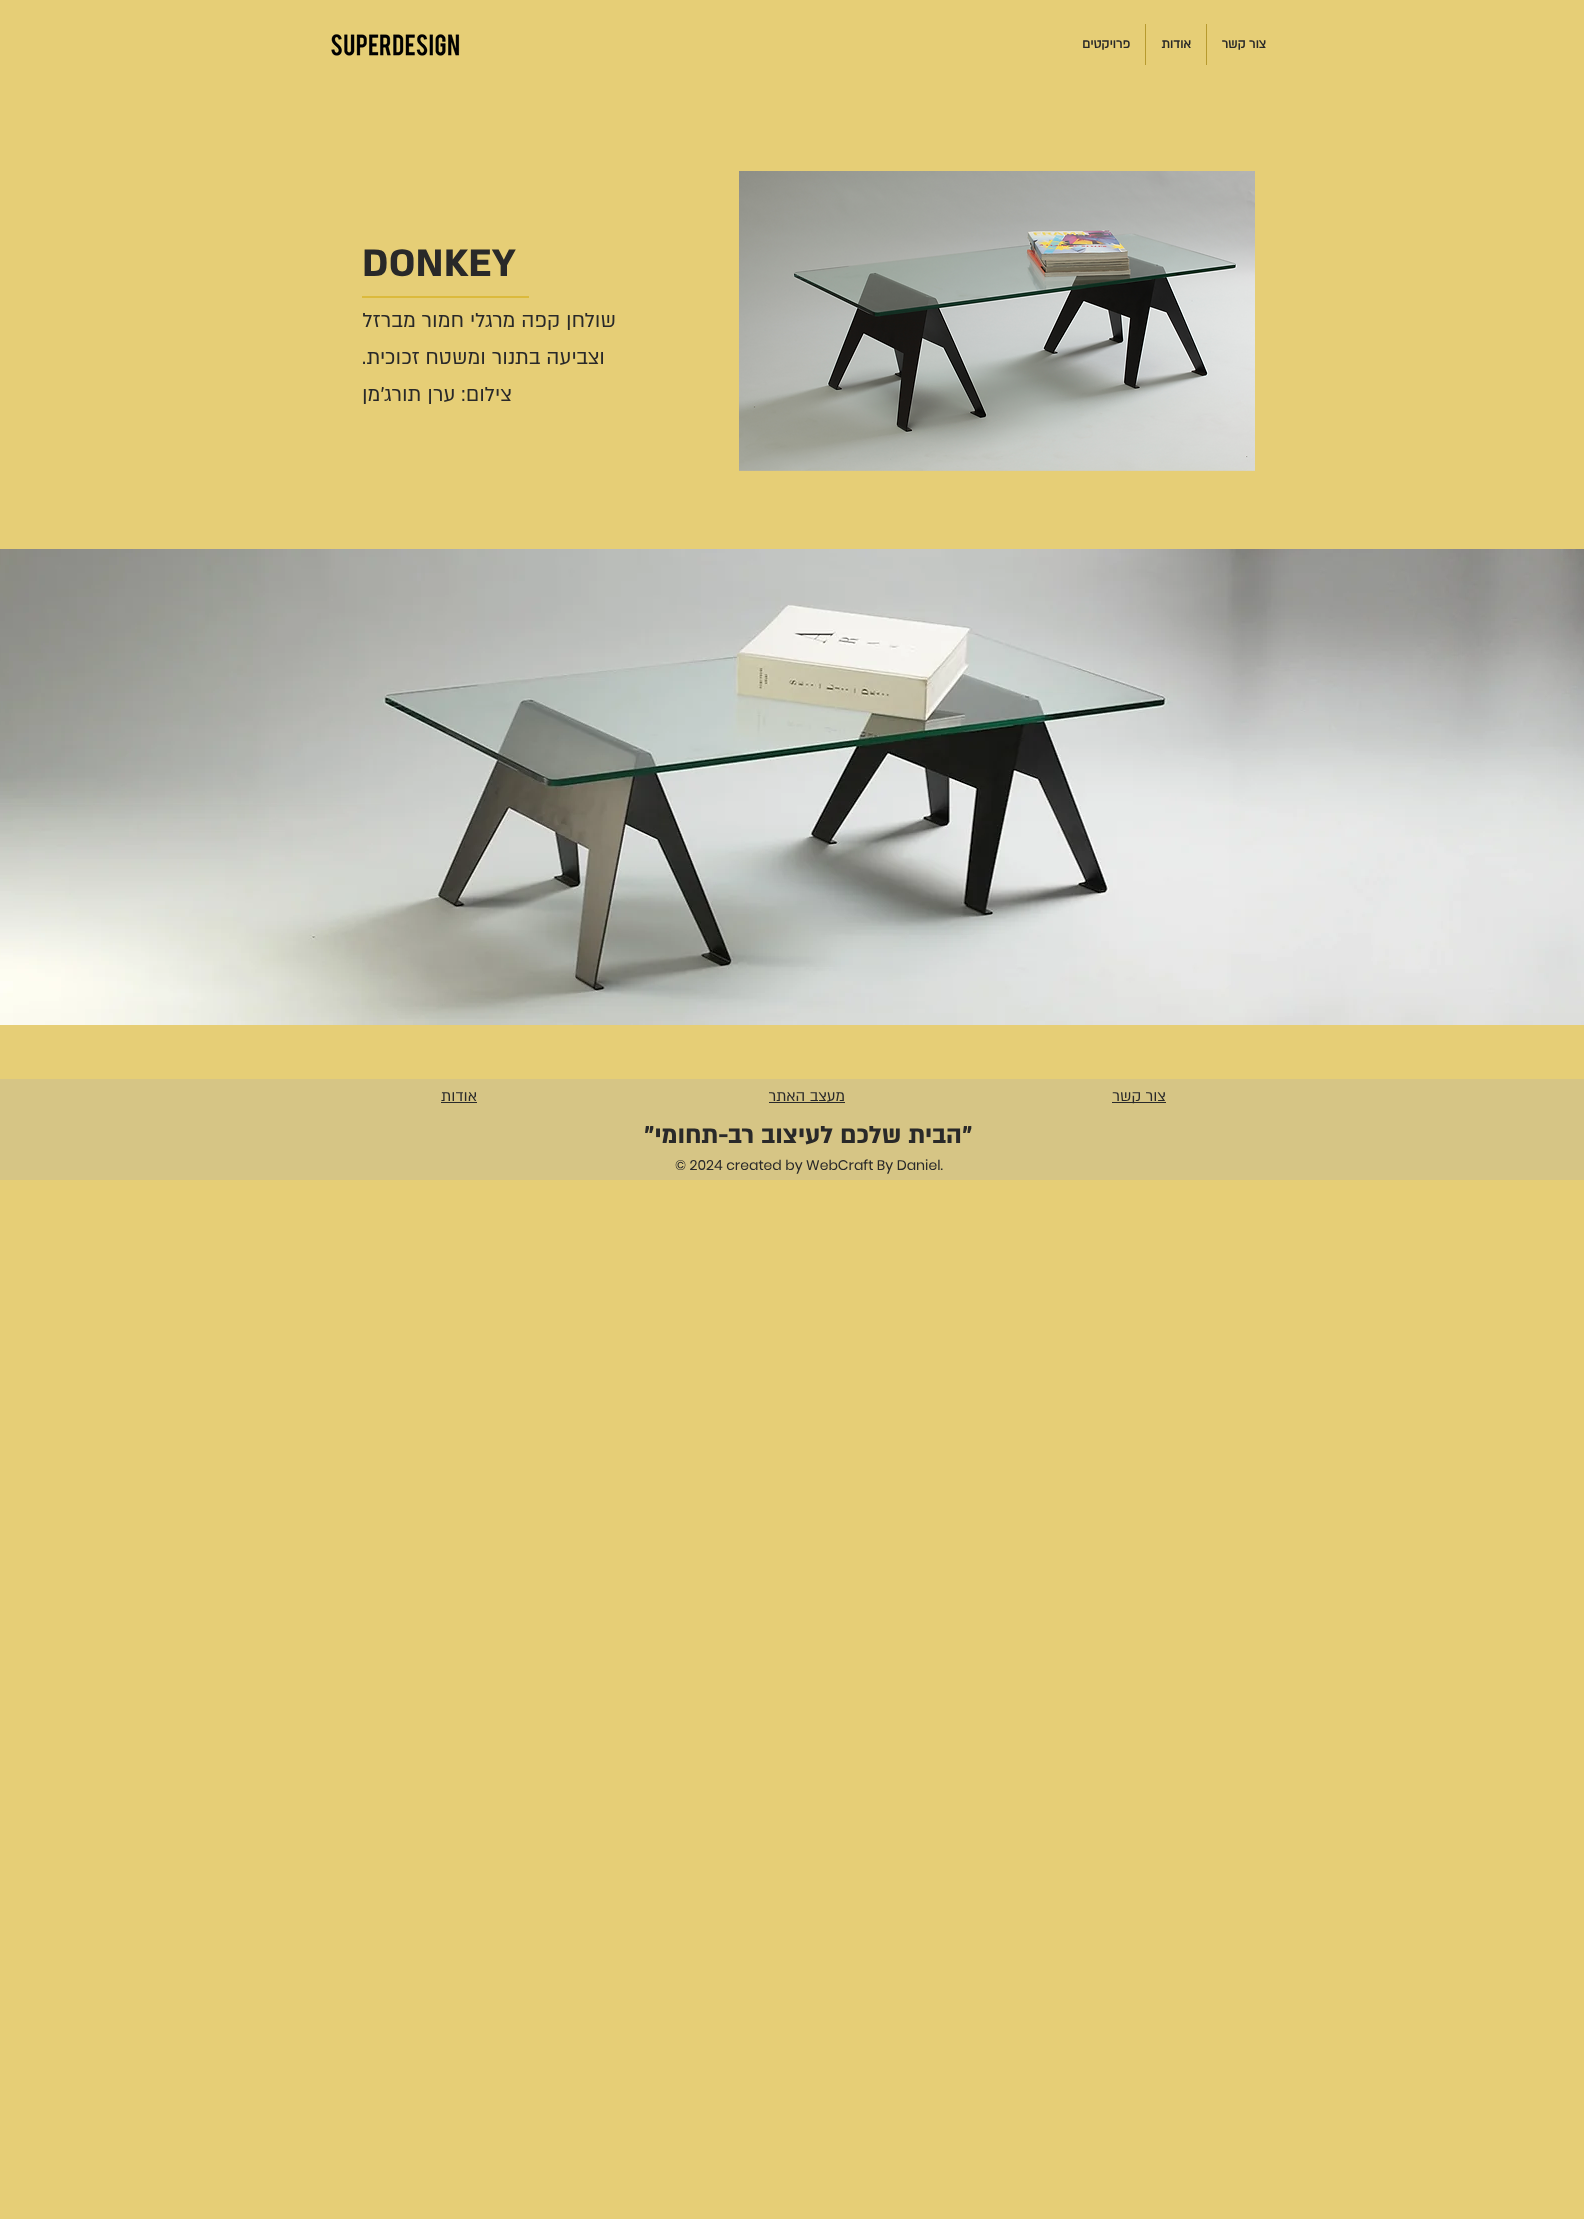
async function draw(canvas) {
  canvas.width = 1584;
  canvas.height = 2219;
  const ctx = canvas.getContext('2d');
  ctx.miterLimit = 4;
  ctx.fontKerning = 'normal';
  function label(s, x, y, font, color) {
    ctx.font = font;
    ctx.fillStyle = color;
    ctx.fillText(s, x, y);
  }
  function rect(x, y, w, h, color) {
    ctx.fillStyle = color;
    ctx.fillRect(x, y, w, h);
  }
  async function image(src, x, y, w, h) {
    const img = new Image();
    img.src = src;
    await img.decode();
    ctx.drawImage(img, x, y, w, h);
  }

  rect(0, 0, 1584, 2219, '#e6ce76');
  rect(1206, 24, 1, 41, '#b79a2e');
  ctx.direction = 'rtl';
  label('צור קשר', 1266, 48, 'bold 14px "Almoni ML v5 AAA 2"', '#292929');
  rect(1145, 24, 1, 41, '#b79a2e');
  label('אודות', 1191, 48, 'bold 14px "Almoni ML v5 AAA 2"', '#292929');
  label('פרויקטים', 1130, 48, 'bold 14px "Almoni ML v5 AAA 2"', '#292929');
  await image('assets/img1.png', 331, 34, 129, 22);
  await image('assets/img2.png', 739, 171, 516, 300);
  ctx.direction = 'ltr';
  label('DONKEY', 362, 276, 'bold 44px "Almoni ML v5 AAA"', '#292929');
  rect(362, 296, 167, 2, '#dcba3c');
  ctx.direction = 'rtl';
  label('שולחן קפה מרגלי חמור מברזל', 616, 327, '23px "Almoni ML v5 AAA"', '#292929');
  label('וצביעה בתנור ומשטח זכוכית.', 605, 364, '23px "Almoni ML v5 AAA"', '#292929');
  label('צילום: ערן תורג\'מן', 512, 401, '23px "Almoni ML v5 AAA"', '#292929');
  await image('assets/img3.png', 0, 549, 1584, 476);
  rect(0, 1079, 1584, 101, '#d6c585');
  rect(1112, 1102, 54, 1, '#2a2a2a');
  label('צור קשר', 1166, 1101, '17px "Almoni ML v5 AAA"', '#292929');
  label('מעצב האתר', 845, 1101, '17px "Almoni ML v5 AAA"', '#292929');
  rect(769, 1102, 76, 1, '#2a2a2a');
  label('אודות', 477, 1101, '17px "Almoni ML v5 AAA"', '#292929');
  rect(441, 1102, 36, 1, '#2a2a2a');
  ctx.direction = 'ltr';
  label('"', 962, 1143, 'bold 28px "Almoni ML v5 AAA"', '#292929');
  ctx.direction = 'rtl';
  label('הבית שלכם לעיצוב רב-תחומי', 962, 1143, 'bold 28px "Almoni ML v5 AAA"', '#292929');
  ctx.direction = 'ltr';
  label('"', 644, 1143, 'bold 28px "Almoni ML v5 AAA"', '#292929');
  label('© 2024 created by WebCraft By Daniel.', 675, 1170, '14px Poppins', '#292929');
}

draw(document.querySelector('canvas'));
